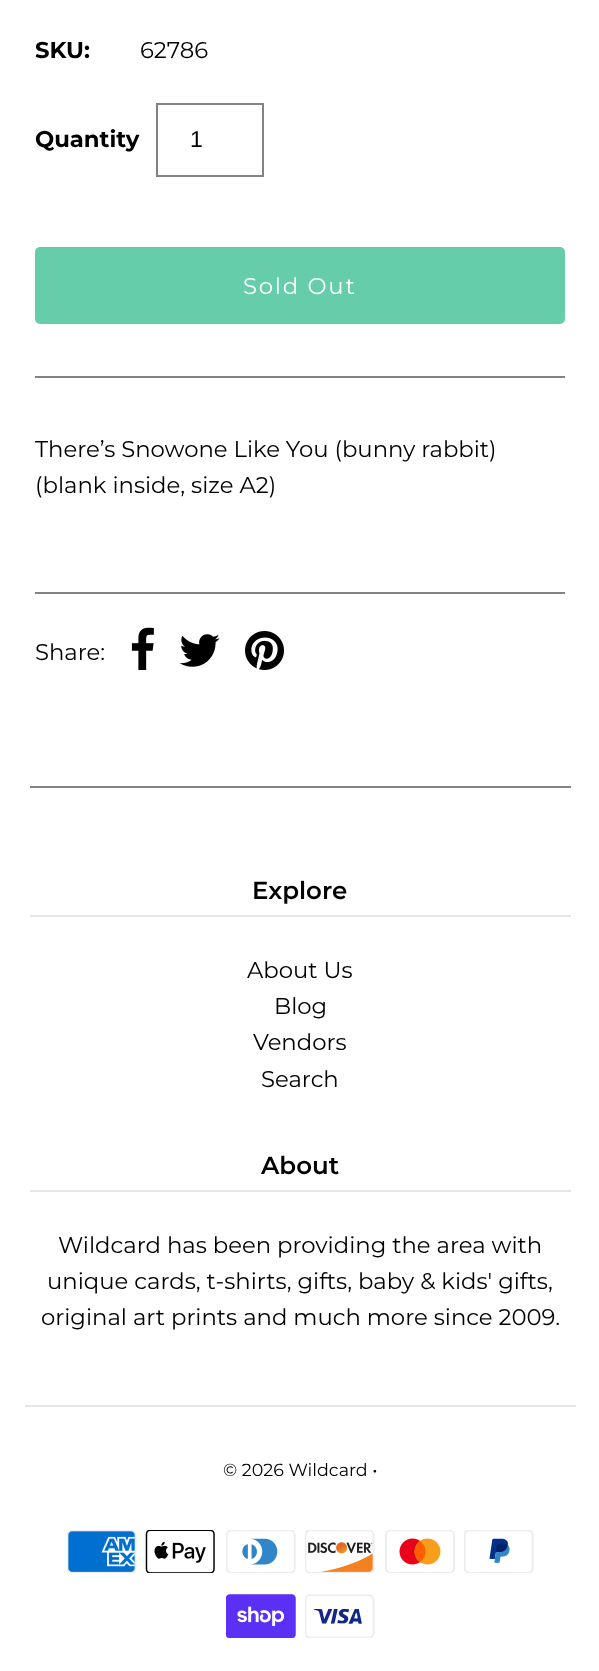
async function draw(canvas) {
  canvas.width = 599;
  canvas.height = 1671;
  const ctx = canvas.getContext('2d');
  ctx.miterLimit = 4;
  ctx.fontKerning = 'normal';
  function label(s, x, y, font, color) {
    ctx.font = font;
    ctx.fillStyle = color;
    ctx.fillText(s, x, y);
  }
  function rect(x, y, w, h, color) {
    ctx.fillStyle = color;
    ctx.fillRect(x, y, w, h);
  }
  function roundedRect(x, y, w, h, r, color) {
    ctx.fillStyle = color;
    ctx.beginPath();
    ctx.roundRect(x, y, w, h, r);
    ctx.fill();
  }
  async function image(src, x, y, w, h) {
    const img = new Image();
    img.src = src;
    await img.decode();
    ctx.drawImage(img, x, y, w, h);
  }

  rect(0, 0, 599, 1671, '#fff');
  rect(35, 376, 530, 2, '#838383');
  label('SKU:', 35, 58, 'bold 22.75px Montserrat', '#000');
  label('62786', 140, 58, '22.75px Montserrat', '#000');
  label('Quantity', 35, 147, 'bold 22.75px Montserrat', '#000');
  ctx.strokeStyle = '#838383';
  ctx.lineWidth = 2;
  ctx.strokeRect(157, 104, 106, 72);
  label('1', 190, 147, '23px Liberation Sans', '#000');
  roundedRect(35, 247, 530, 77, 5, '#66cdaa');
  ctx.letterSpacing = '1.75px';
  label('Sold Out', 243, 294, '22.75px Montserrat', '#fff');
  ctx.letterSpacing = '0px';
  label('There’s Snowone Like You (bunny rabbit)', 35, 457, '22.75px Montserrat', '#000');
  label('(blank inside, size A2)', 35, 493, '22.75px Montserrat', '#000');
  rect(35, 592, 530, 2, '#838383');
  label('Share:', 35, 660, '22.75px Montserrat', '#000');
  await image('assets/img1.png', 131, 627, 23, 43);
  await image('assets/img2.png', 179, 634, 41, 33);
  await image('assets/img3.png', 245, 631, 39, 39);
  rect(30, 786, 541, 2, '#838383');
  rect(30, 915, 541, 2, '#e5e5e5');
  label('Explore', 252, 899, '600 24.5px Montserrat', '#000');
  label('About Us', 247, 978, '22.75px Montserrat', '#000');
  label('Blog', 274, 1014, '22.75px Montserrat', '#000');
  label('Vendors', 253, 1050, '22.75px Montserrat', '#000');
  label('Search', 261, 1087, '22.75px Montserrat', '#000');
  rect(30, 1190, 541, 2, '#e5e5e5');
  label('About', 261, 1174, '600 24.5px Montserrat', '#000');
  label('Wildcard has been providing the area with', 58, 1253, '22.75px Montserrat', '#000');
  label('unique cards, t-shirts, gifts, baby & kids\' gifts,', 47, 1289, '22.75px Montserrat', '#000');
  label('original art prints and much more since 2009.', 41, 1325, '22.75px Montserrat', '#000');
  rect(25, 1405, 551, 2, '#e5e5e5');
  label('© 2026 Wildcard •', 223, 1476, '17.5px Montserrat', '#000');
  await image('assets/img4.png', 67, 1530, 70, 43);
  await image('assets/img5.png', 145, 1530, 70, 43);
  await image('assets/img6.png', 226, 1530, 70, 43);
  await image('assets/img7.png', 305, 1530, 70, 43);
  await image('assets/img8.png', 385, 1530, 70, 43);
  await image('assets/img9.png', 464, 1530, 70, 43);
  await image('assets/img10.png', 226, 1594, 70, 44);
  await image('assets/img11.png', 305, 1594, 70, 44);
}

draw(document.querySelector('canvas'));
